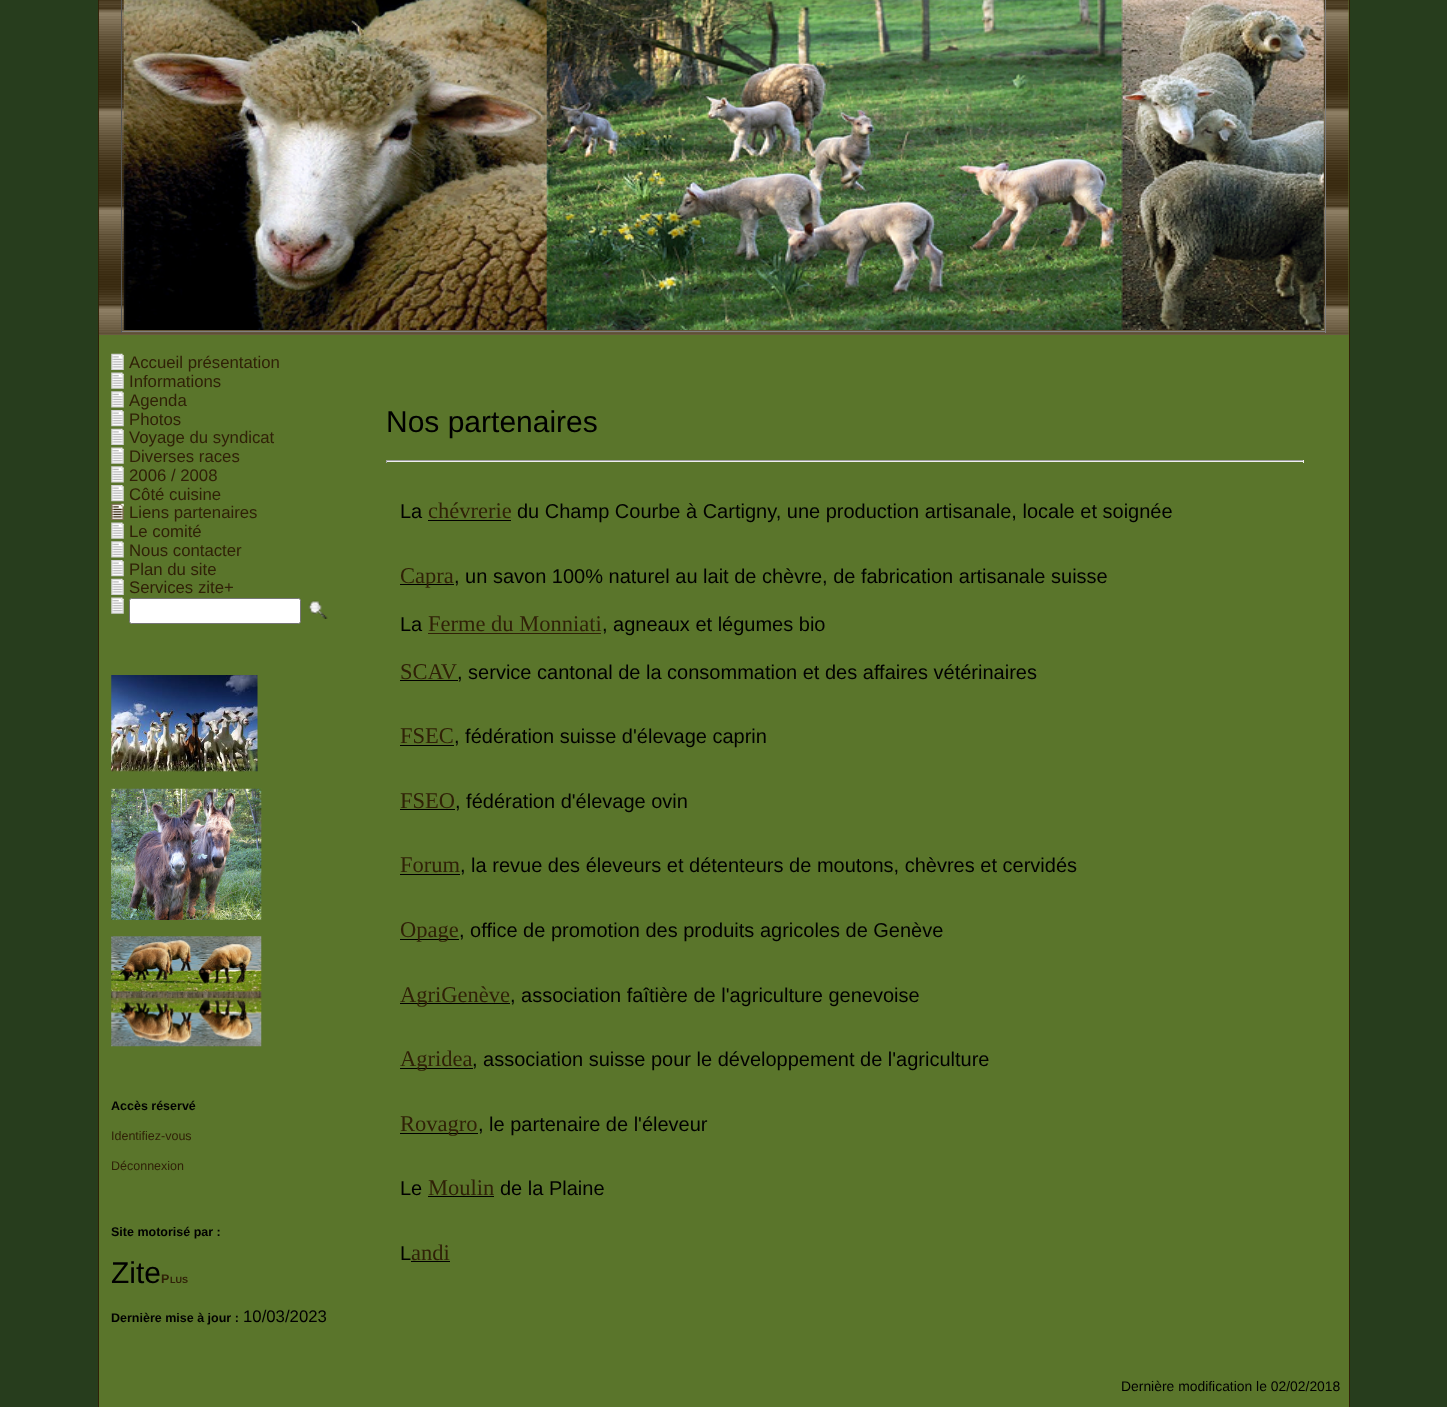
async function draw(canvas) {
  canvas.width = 1447;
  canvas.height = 1407;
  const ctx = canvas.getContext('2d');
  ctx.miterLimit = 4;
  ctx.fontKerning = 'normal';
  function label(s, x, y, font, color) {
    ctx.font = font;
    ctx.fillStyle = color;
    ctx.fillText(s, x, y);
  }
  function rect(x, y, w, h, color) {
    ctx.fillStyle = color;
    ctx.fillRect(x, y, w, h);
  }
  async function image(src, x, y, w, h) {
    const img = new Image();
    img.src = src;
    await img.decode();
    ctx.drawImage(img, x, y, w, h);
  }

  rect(0, 0, 1447, 1407, '#273d1d');
  rect(99, 0, 1250, 1407, '#5a752b');
  rect(1349, 0, 1, 1407, '#302107');
  rect(98, 0, 1, 1407, '#302107');
  await image('assets/img1.png', 98, 0, 1251, 335);
  rect(1325, 0, 1, 333, '#808080');
  rect(121, 331, 1205, 1, '#808080');
  rect(121, 0, 1, 333, '#555');
  await image('assets/img2.png', 123, 0, 1201, 330);
  await image('assets/img3.png', 111, 353, 13, 17);
  label('Accueil présentation', 129, 368, '16.75px Liberation Sans', '#302107');
  await image('assets/img4.png', 111, 372, 13, 17);
  label('Informations', 129, 387, '16.75px Liberation Sans', '#302107');
  await image('assets/img5.png', 111, 391, 13, 17);
  label('Agenda', 129, 406, '16.75px Liberation Sans', '#302107');
  await image('assets/img6.png', 111, 410, 13, 17);
  label('Photos', 129, 425, '16.75px Liberation Sans', '#302107');
  await image('assets/img3.png', 111, 428, 13, 17);
  label('Voyage du syndicat', 129, 443, '16.75px Liberation Sans', '#302107');
  await image('assets/img4.png', 111, 447, 13, 17);
  label('Diverses races', 129, 462, '16.75px Liberation Sans', '#302107');
  await image('assets/img5.png', 111, 466, 13, 17);
  label('2006 / 2008', 129, 481, '16.75px Liberation Sans', '#302107');
  await image('assets/img6.png', 111, 485, 13, 17);
  label('Côté cuisine', 129, 500, '16.75px Liberation Sans', '#302107');
  await image('assets/img7.png', 111, 503, 13, 17);
  label('Liens partenaires', 129, 518, '16.75px Liberation Sans', '#302107');
  await image('assets/img4.png', 111, 522, 13, 17);
  label('Le comité', 129, 537, '16.75px Liberation Sans', '#302107');
  await image('assets/img5.png', 111, 541, 13, 17);
  label('Nous contacter', 129, 556, '16.75px Liberation Sans', '#302107');
  await image('assets/img6.png', 111, 560, 13, 17);
  label('Plan du site', 129, 575, '16.75px Liberation Sans', '#302107');
  await image('assets/img3.png', 111, 578, 13, 17);
  label('Services zite+', 129, 593, '16.75px Liberation Sans', '#302107');
  await image('assets/img4.png', 111, 597, 13, 17);
  ctx.fillStyle = '#fff';
  ctx.beginPath();
  ctx.roundRect(129.5, 598.5, 171, 25, 2);
  ctx.fill();
  ctx.strokeStyle = '#767676';
  ctx.stroke();
  await image('assets/img8.png', 308, 600, 20, 19);
  await image('assets/img9.png', 111, 675, 147, 97);
  await image('assets/img10.png', 111, 788, 151, 132);
  await image('assets/img11.png', 111, 936, 151, 111);
  label('Accès réservé', 111, 1110, 'bold 12.5px Liberation Sans', '#000');
  label('Identifiez-vous', 111, 1140, '12.5px Liberation Sans', '#302107');
  label('Déconnexion', 111, 1170, '12.5px Liberation Sans', '#302107');
  label('Site motorisé par :', 111, 1236, 'bold 12.5px Liberation Sans', '#000');
  label('Zite', 111, 1283, '30px Liberation Sans', '#000');
  label('P', 161, 1283, 'bold 12.5px Liberation Sans', '#302107');
  label('LUS', 170, 1283, 'bold 9px Liberation Sans', '#302107');
  label('Dernière mise à jour :', 111, 1322, 'bold 12.5px Liberation Sans', '#000');
  label('10/03/2023', 243, 1322, '16.75px Liberation Sans', '#000');
  label('Nos partenaires', 386, 432, '30px Liberation Sans', '#000');
  rect(386, 460, 918, 1, '#9f9f9f');
  rect(1303, 460, 1, 3, '#eee');
  rect(386, 461, 918, 1, '#eee');
  rect(386, 460, 1, 3, '#9f9f9f');
  label('La', 400, 518, '20px Liberation Sans', '#000');
  label('chévrerie', 428, 518, '22.5px Liberation Serif', '#302107');
  rect(428, 520, 83, 1, '#000');
  label('du Champ Courbe à Cartigny, une production artisanale, locale et soignée', 517, 518, '20px Liberation Sans', '#000');
  rect(400, 584, 54, 1, '#000');
  label('Capra', 400, 583, '22.5px Liberation Serif', '#302107');
  label(', un savon 100% naturel au lait de chèvre, de fabrication artisanale suisse', 454, 583, '20px Liberation Sans', '#000');
  label('La', 400, 631, '20px Liberation Sans', '#000');
  label('Ferme du Monniati', 428, 631, '22.5px Liberation Serif', '#302107');
  label(', agneaux et légumes bio', 602, 631, '20px Liberation Sans', '#000');
  rect(428, 633, 173, 1, '#302107');
  label('SCAV', 400, 679, '22.5px Liberation Serif', '#302107');
  label(', service cantonal de la consommation et des affaires vétérinaires', 457, 679, '20px Liberation Sans', '#000');
  rect(400, 680, 58, 1, '#000');
  label('FSEC', 400, 743, '22.5px Liberation Serif', '#302107');
  rect(400, 745, 54, 1, '#000');
  label(', fédération suisse d\'élevage caprin', 454, 743, '20px Liberation Sans', '#000');
  label('FSEO', 400, 808, '22.5px Liberation Serif', '#302107');
  label(', fédération d\'élevage ovin', 455, 808, '20px Liberation Sans', '#000');
  rect(400, 809, 55, 1, '#000');
  label('Forum', 400, 872, '22.5px Liberation Serif', '#302107');
  rect(400, 874, 60, 1, '#000');
  label(', la revue des éleveurs et détenteurs de moutons, chèvres et cervidés', 460, 872, '20px Liberation Sans', '#000');
  rect(400, 939, 59, 1, '#000');
  label('Opage', 400, 937, '22.5px Liberation Serif', '#302107');
  label(', office de promotion des produits agricoles de Genève', 459, 937, '20px Liberation Sans', '#000');
  rect(400, 1003, 110, 1, '#000');
  label('AgriGenève', 400, 1002, '22.5px Liberation Serif', '#302107');
  label(', association faîtière de l\'agriculture genevoise', 510, 1002, '20px Liberation Sans', '#000');
  rect(400, 1068, 73, 1, '#000');
  label('Agridea', 400, 1066, '22.5px Liberation Serif', '#302107');
  label(', association suisse pour le développement de l\'agriculture', 472, 1066, '20px Liberation Sans', '#000');
  rect(400, 1133, 78, 1, '#000');
  label('Rovagro', 400, 1131, '22.5px Liberation Serif', '#302107');
  label(', le partenaire de l\'éleveur', 478, 1131, '20px Liberation Sans', '#000');
  label('Le', 400, 1195, '20px Liberation Sans', '#000');
  label('Moulin', 428, 1195, '22.5px Liberation Serif', '#302107');
  rect(428, 1196, 66, 1, '#000');
  label('de la Plaine', 500, 1195, '20px Liberation Sans', '#000');
  label('L', 400, 1260, '20px Liberation Sans', '#000');
  label('andi', 411, 1260, '22.5px Liberation Serif', '#302107');
  rect(411, 1261, 39, 1, '#000');
  label('Dernière modification le 02/02/2018', 1121, 1391, '13.9px Liberation Sans', '#000');
}

draw(document.querySelector('canvas'));
